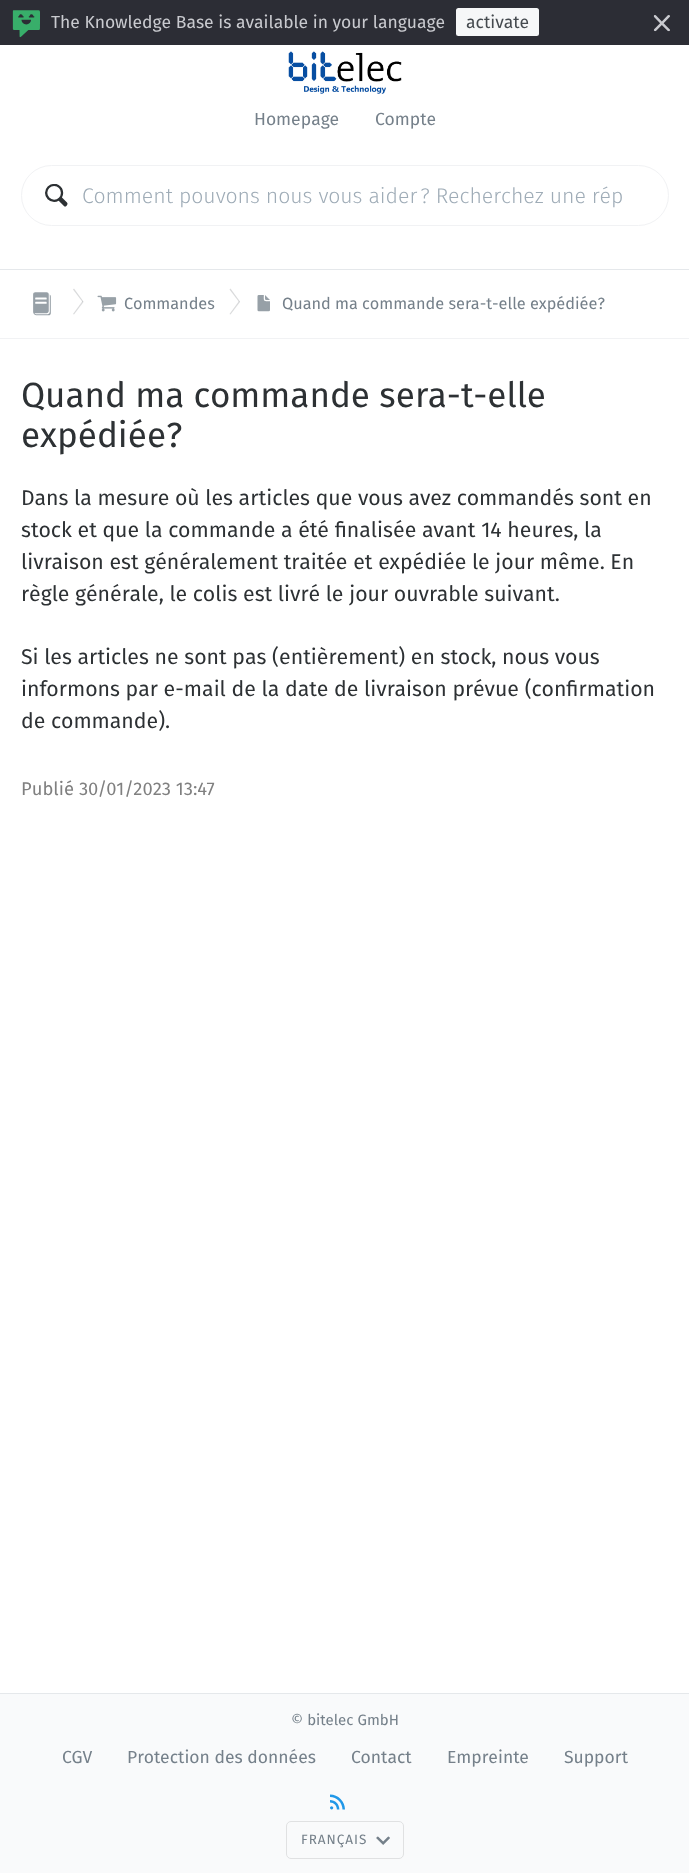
async function draw(canvas) {
  canvas.width = 689;
  canvas.height = 1873;
  const ctx = canvas.getContext('2d');
  ctx.miterLimit = 4;
  ctx.fontKerning = 'normal';
  function label(s, x, y, font, color) {
    ctx.font = font;
    ctx.fillStyle = color;
    ctx.fillText(s, x, y);
  }
  function rect(x, y, w, h, color) {
    ctx.fillStyle = color;
    ctx.fillRect(x, y, w, h);
  }
  function roundedRect(x, y, w, h, r, color) {
    ctx.fillStyle = color;
    ctx.beginPath();
    ctx.roundRect(x, y, w, h, r);
    ctx.fill();
  }
  async function image(src, x, y, w, h) {
    const img = new Image();
    img.src = src;
    await img.decode();
    ctx.drawImage(img, x, y, w, h);
  }
  let path;

  rect(0, 0, 689, 1873, '#fff');
  rect(0, 0, 689, 45, '#2c2d35');
  await image('assets/img1.png', 12, 10, 28, 28);
  label('The Knowledge Base is available in your language', 51, 28, '17.5px Fira Sans', '#c9cacf');
  roundedRect(456, 8, 83, 28, 2.5, '#f6f7f8');
  label('activate', 466, 28, '17.5px Fira Sans', '#454a4f');
  await image('assets/img2.png', 653, 15, 17, 17);
  rect(0, 269, 689, 1, '#e5e8eb');
  await image('assets/img3.png', 288, 51, 114, 43);
  label('Homepage', 254, 125, '17.5px Fira Sans', '#75808a');
  label('Compte', 375, 125, '17.5px Fira Sans', '#75808a');
  ctx.beginPath();
  ctx.roundRect(21.5, 165.5, 647, 60, 30);
  ctx.strokeStyle = '#f1f2f4';
  ctx.stroke();
  await image('assets/img4.png', 45, 184, 23, 23);
  label('Comment pouvons nous vous aider ? Recherchez une rép', 82, 203, '300 21.25px Fira Sans', '#9facb7');
  rect(0, 338, 689, 1, '#f1f2f4');
  await image('assets/img5.png', 33, 292, 18, 24);
  ctx.fillStyle = '#dadbdc';
  path = new Path2D('M73 289.5L74 288.5L83.5 301.5L82.5 302Z');
  ctx.fill(path);
  ctx.fillStyle = '#454a4f33';
  path = new Path2D('M82.5 301L83.5 302L74 314.5L73 314Z');
  ctx.fill(path);
  await image('assets/img6.png', 97, 295, 20, 17);
  label('Commandes', 124, 309, '16.25px Fira Sans', '#75808a');
  ctx.fillStyle = '#dadbdc';
  path = new Path2D('M229.5 289.5L230.5 288.5L240 301.5L239 302Z');
  ctx.fill(path);
  ctx.fillStyle = '#454a4f33';
  path = new Path2D('M239 301L240 302L230.5 314.5L229.5 314Z');
  ctx.fill(path);
  await image('assets/img7.png', 257, 295, 13, 17);
  label('Quand ma commande sera-t-elle expédiée?', 282, 309, '16.25px Fira Sans', '#75808a');
  label('Quand ma commande sera-t-elle', 21, 407, '35px Fira Sans', '#2d3134');
  label('expédiée?', 21, 447, '35px Fira Sans', '#2d3134');
  label('Dans la mesure où les articles que vous avez commandés sont en', 21, 505, '21.25px Fira Sans', '#2d3134');
  label('stock et que la commande a été finalisée avant 14 heures, la', 21, 537, '21.25px Fira Sans', '#2d3134');
  label('livraison est généralement traitée et expédiée le jour même. En', 21, 569, '21.25px Fira Sans', '#2d3134');
  label('règle générale, le colis est livré le jour ouvrable suivant.', 21, 601, '21.25px Fira Sans', '#2d3134');
  label('Si les articles ne sont pas (entièrement) en stock, nous vous', 21, 664, '21.25px Fira Sans', '#2d3134');
  label('informons par e-mail de la date de livraison prévue (confirmation', 21, 696, '21.25px Fira Sans', '#2d3134');
  label('de commande).', 21, 728, '21.25px Fira Sans', '#2d3134');
  label('Publié 30/01/2023 13:47', 21, 795, '18.4px Fira Sans', '#808080');
  rect(0, 1694, 689, 179, '#f9fafb');
  rect(0, 1693, 689, 1, '#e5e8eb');
  label('© bitelec GmbH', 291, 1725, '15px Fira Sans', '#75808a');
  label('CGV', 62, 1763, '17.5px Fira Sans', '#75808a');
  label('Protection des données', 127, 1763, '17.5px Fira Sans', '#75808a');
  label('Contact', 351, 1763, '17.5px Fira Sans', '#75808a');
  label('Empreinte', 447, 1763, '17.5px Fira Sans', '#75808a');
  label('Support', 564, 1763, '17.5px Fira Sans', '#75808a');
  await image('assets/img8.png', 330, 1794, 15, 16);
  ctx.beginPath();
  ctx.roundRect(286.5, 1821.5, 117, 37, 4.5);
  ctx.strokeStyle = '#e0e1e2';
  ctx.stroke();
  ctx.letterSpacing = '1px';
  label('FRANÇAIS', 301, 1844, '13.5px Fira Sans', '#75808a');
  await image('assets/img9.png', 376, 1836, 14, 9);
}

draw(document.querySelector('canvas'));
